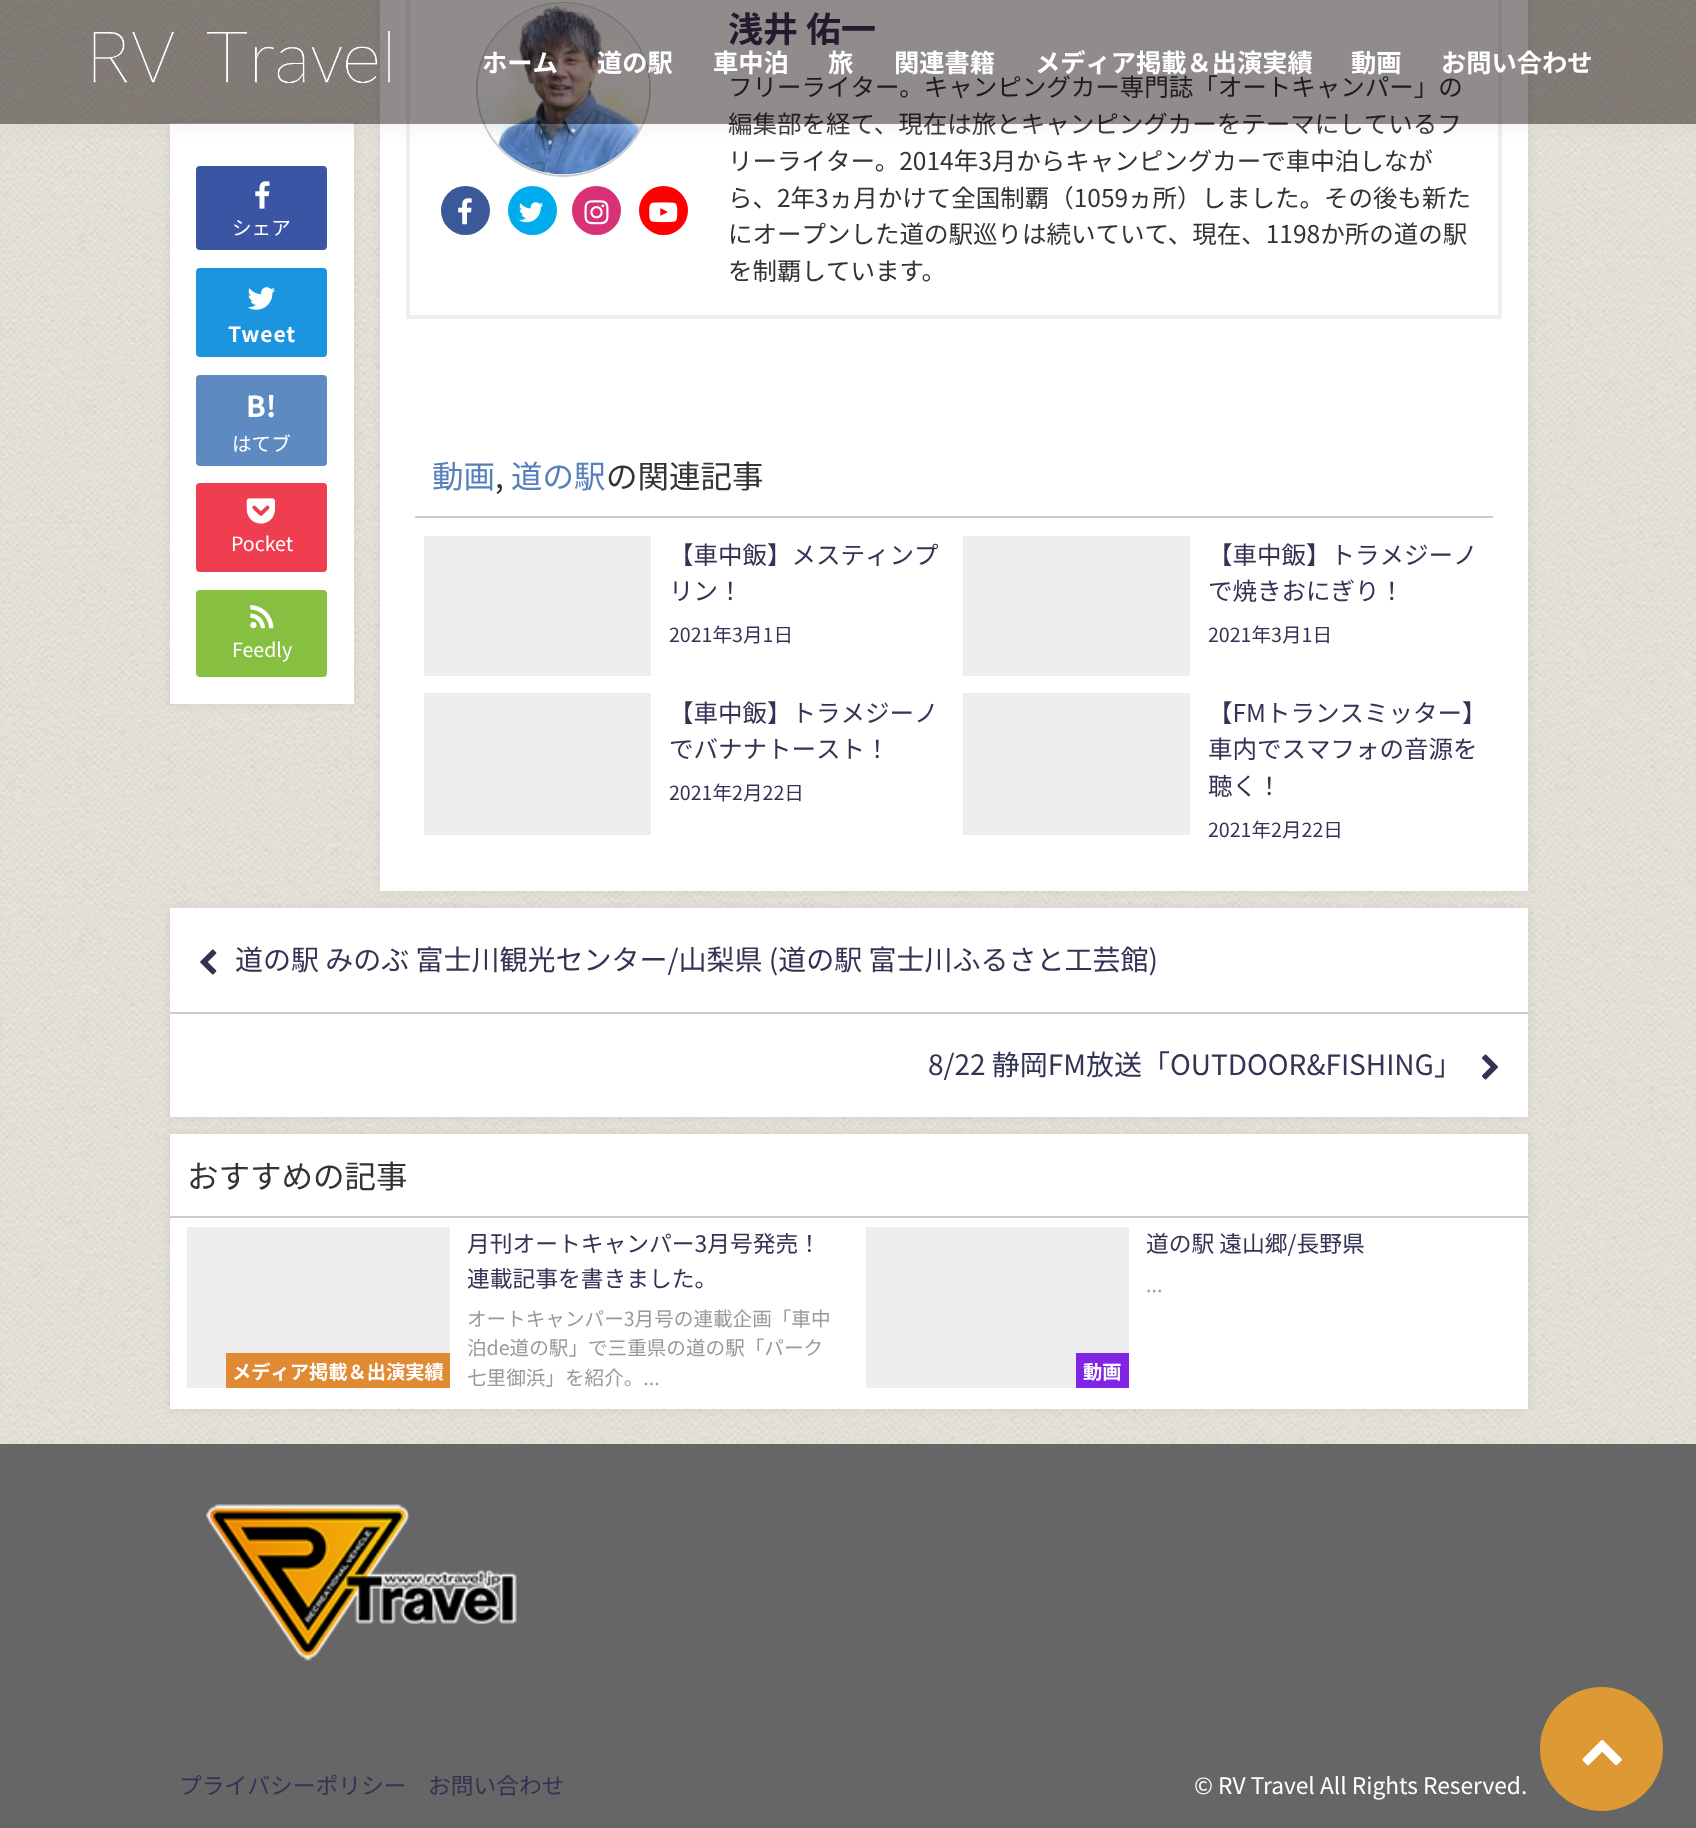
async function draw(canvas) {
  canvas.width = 1696;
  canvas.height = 1828;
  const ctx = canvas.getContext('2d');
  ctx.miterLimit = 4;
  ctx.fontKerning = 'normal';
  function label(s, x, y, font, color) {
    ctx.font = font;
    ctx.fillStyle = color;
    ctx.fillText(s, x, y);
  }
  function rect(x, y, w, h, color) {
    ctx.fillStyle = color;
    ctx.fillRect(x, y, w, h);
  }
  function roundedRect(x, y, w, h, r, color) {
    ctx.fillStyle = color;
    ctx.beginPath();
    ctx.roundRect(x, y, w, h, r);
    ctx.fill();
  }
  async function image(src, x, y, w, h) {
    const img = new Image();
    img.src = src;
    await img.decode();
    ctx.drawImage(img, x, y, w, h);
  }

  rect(0, 0, 1696, 1828, '#fff');
  await image('assets/img1.png', 0, 0, 1696, 1444);
  ctx.fillStyle = '#96969633';
  ctx.filter = 'blur(4.5px)';
  ctx.beginPath();
  ctx.rect(170, 123, 184, 581);
  ctx.fill();
  ctx.filter = 'none';
  rect(170, 123, 184, 581, '#fff');
  roundedRect(196, 166, 131, 84, 4, '#3b55a5');
  await image('assets/img2.png', 255, 181, 15, 28);
  label('シェア', 232, 235, '19.6px Noto Sans JP', '#fff');
  roundedRect(196, 268, 131, 89, 4, '#1b95e0');
  await image('assets/img3.png', 247, 287, 28, 23);
  ctx.letterSpacing = '1px';
  label('Tweet', 228, 342, 'bold 21px Noto Sans JP', '#fff');
  roundedRect(196, 375, 131, 91, 4, '#5d8ac1');
  ctx.letterSpacing = '0px';
  label('B!', 246, 417, 'bold 29px Noto Sans JP', '#fff');
  label('はてブ', 232, 451, '19.6px Noto Sans JP', '#fff');
  roundedRect(196, 483, 131, 89, 4, '#f03e51');
  await image('assets/img4.png', 246, 498, 29, 26);
  label('Pocket', 231, 551, '19.6px Noto Sans JP', '#fff');
  roundedRect(196, 590, 131, 87, 4, '#87c040');
  await image('assets/img5.png', 250, 605, 24, 24);
  label('Feedly', 232, 657, '19.6px Noto Sans JP', '#fff');
  ctx.fillStyle = '#96969633';
  ctx.filter = 'blur(4.5px)';
  ctx.beginPath();
  ctx.rect(380, -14, 1148, 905);
  ctx.fill();
  ctx.filter = 'none';
  rect(380, 0, 1148, 891, '#fff');
  ctx.strokeStyle = '#eee';
  ctx.lineWidth = 4;
  ctx.strokeRect(408, -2, 1092, 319);
  ctx.beginPath();
  ctx.arc(563.5, 89.5, 86.5, 0, 2 * Math.PI);
  ctx.strokeStyle = '#ccc';
  ctx.lineWidth = 2;
  ctx.stroke();
  await image('assets/img6.png', 478, 3, 171, 172);
  ctx.fillStyle = '#3b5998';
  ctx.beginPath();
  ctx.arc(465.5, 210.5, 24.5, 0, 2 * Math.PI);
  ctx.fill();
  await image('assets/img7.png', 458, 198, 14, 27);
  ctx.fillStyle = '#00acee';
  ctx.beginPath();
  ctx.arc(532.5, 210.5, 24.5, 0, 2 * Math.PI);
  ctx.fill();
  await image('assets/img8.png', 518, 202, 26, 21);
  ctx.fillStyle = '#d93177';
  ctx.beginPath();
  ctx.arc(596.5, 210.5, 24.5, 0, 2 * Math.PI);
  ctx.fill();
  await image('assets/img9.png', 584, 200, 25, 25);
  ctx.fillStyle = '#f00';
  ctx.beginPath();
  ctx.arc(663.5, 210.5, 24.5, 0, 2 * Math.PI);
  ctx.fill();
  await image('assets/img10.png', 649, 202, 29, 21);
  label('浅井 佑一', 728, 42, 'bold 35px Noto Sans JP', '#335');
  label('フリーライター。キャンピングカー専門誌「オートキャンパー」の', 728, 96, '24.5px Noto Sans JP', '#333');
  label('編集部を経て、現在は旅とキャンピングカーをテーマにしているフ', 728, 133, '24.5px Noto Sans JP', '#333');
  label('リーライター。2014年3月からキャンピングカーで車中泊しなが', 728, 170, '24.5px Noto Sans JP', '#333');
  label('ら、2年3ヵ月かけて全国制覇（1059ヵ所）しました。その後も新た', 728, 207, '24.5px Noto Sans JP', '#333');
  label('にオープンした道の駅巡りは続いていて、現在、1198か所の道の駅', 728, 243, '24.5px Noto Sans JP', '#333');
  label('を制覇しています。', 728, 280, '24.5px Noto Sans JP', '#333');
  rect(415, 516, 1078, 2, '#ccc');
  label('動画', 432, 488, '31.5px Noto Sans JP', '#577fbc');
  label(',', 495, 488, '31.5px Noto Sans JP', '#333');
  label('道の駅', 511, 488, '31.5px Noto Sans JP', '#577fbc');
  label('の関連記事', 606, 488, '31.5px Noto Sans JP', '#333');
  rect(424, 536, 227, 140, '#eee');
  label('【車中飯】メスティンプ', 669, 564, '24.5px Noto Sans JP', '#335');
  label('リン！', 669, 600, '24.5px Noto Sans JP', '#335');
  label('2021年3月1日', 669, 642, '19.6px Noto Sans JP', '#335');
  rect(963, 536, 227, 140, '#eee');
  label('【車中飯】トラメジーノ', 1208, 564, '24.5px Noto Sans JP', '#335');
  label('で焼きおにぎり！', 1208, 600, '24.5px Noto Sans JP', '#335');
  label('2021年3月1日', 1208, 642, '19.6px Noto Sans JP', '#335');
  rect(424, 693, 227, 142, '#eee');
  label('【車中飯】トラメジーノ', 669, 722, '24.5px Noto Sans JP', '#335');
  label('でバナナトースト！', 669, 758, '24.5px Noto Sans JP', '#335');
  label('2021年2月22日', 669, 800, '19.6px Noto Sans JP', '#335');
  rect(963, 693, 227, 142, '#eee');
  label('【FMトランスミッター】', 1208, 722, '24.5px Noto Sans JP', '#335');
  label('車内でスマフォの音源を', 1208, 758, '24.5px Noto Sans JP', '#335');
  label('聴く！', 1208, 795, '24.5px Noto Sans JP', '#335');
  label('2021年2月22日', 1208, 837, '19.6px Noto Sans JP', '#335');
  ctx.fillStyle = '#96969633';
  ctx.filter = 'blur(4.5px)';
  ctx.beginPath();
  ctx.rect(170, 908, 1358, 209);
  ctx.fill();
  ctx.filter = 'none';
  rect(170, 908, 1358, 209, '#fff');
  await image('assets/img11.png', 200, 949, 17, 26);
  label('道の駅 みのぶ 富士川観光センター/山梨県 (道の駅 富士川ふるさと工芸館)', 235, 970, '28px Noto Sans JP', '#335');
  rect(170, 1012, 1358, 2, '#ccc');
  label('8/22 静岡FM放送「OUTDOOR&FISHING」', 928, 1075, '28px Noto Sans JP', '#335');
  await image('assets/img12.png', 1481, 1054, 17, 26);
  ctx.fillStyle = '#96969633';
  ctx.filter = 'blur(4.5px)';
  ctx.beginPath();
  ctx.rect(170, 1134, 1358, 275);
  ctx.fill();
  ctx.filter = 'none';
  rect(170, 1134, 1358, 275, '#fff');
  rect(170, 1216, 1358, 2, '#ccc');
  label('おすすめの記事', 187, 1188, '31.5px Noto Sans JP', '#333');
  rect(187, 1227, 263, 161, '#eee');
  rect(226, 1353, 224, 35, '#e08a33');
  label('メディア掲載＆出演実績', 232, 1379, 'bold 19.25px Noto Sans JP', '#fff');
  label('月刊オートキャンパー3月号発売！', 467, 1252, '22.75px Noto Sans JP', '#335');
  label('連載記事を書きました。', 467, 1287, '22.75px Noto Sans JP', '#335');
  label('オートキャンパー3月号の連載企画「車中', 467, 1326, '19.6px Noto Sans JP', '#999');
  label('泊de道の駅」で三重県の道の駅「パーク', 467, 1355, '19.6px Noto Sans JP', '#999');
  label('七里御浜」を紹介。...', 467, 1385, '19.6px Noto Sans JP', '#999');
  label('道の駅 遠山郷/長野県', 1146, 1252, '22.75px Noto Sans JP', '#335');
  label('...', 1146, 1292, '19.6px Noto Sans JP', '#999');
  rect(866, 1227, 263, 161, '#eee');
  rect(1076, 1353, 53, 35, '#8224e3');
  label('動画', 1083, 1379, 'bold 19.25px Noto Sans JP', '#fff');
  ctx.save();
  ctx.beginPath();
  ctx.rect(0, 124, 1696, 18);
  ctx.clip();
  ctx.fillStyle = '#c8c8c833';
  ctx.filter = 'blur(9px)';
  ctx.beginPath();
  ctx.rect(0, 5, 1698, 125);
  ctx.fill();
  ctx.filter = 'none';
  ctx.restore();
  rect(0, 0, 1696, 124, '#0a000073');
  await image('assets/img13.png', 93, 31, 297, 52);
  label('ホーム', 482, 72, 'bold 25.25px Noto Sans JP', '#fff');
  label('道の駅', 597, 72, 'bold 25.25px Noto Sans JP', '#fff');
  label('車中泊', 713, 72, 'bold 25.25px Noto Sans JP', '#fff');
  label('旅', 828, 72, 'bold 25.25px Noto Sans JP', '#fff');
  label('関連書籍', 894, 72, 'bold 25.25px Noto Sans JP', '#fff');
  label('メディア掲載＆出演実績', 1035, 72, 'bold 25.25px Noto Sans JP', '#fff');
  label('動画', 1351, 72, 'bold 25.25px Noto Sans JP', '#fff');
  label('お問い合わせ', 1441, 72, 'bold 25.25px Noto Sans JP', '#fff');
  rect(0, 1444, 1696, 384, '#666');
  await image('assets/img14.png', 206, 1504, 311, 157);
  label('プライバシーポリシー', 179, 1794, '22.75px Noto Sans JP', '#335');
  label('お問い合わせ', 428, 1794, '22.75px Noto Sans JP', '#335');
  label('©︎ RV Travel All Rights Reserved.', 1194, 1794, '22.75px Noto Sans JP', '#fff');
  roundedRect(1540, 1687, 123, 124, 61.5, '#d93');
  await image('assets/img15.png', 1582, 1740, 40, 26);
}

draw(document.querySelector('canvas'));
